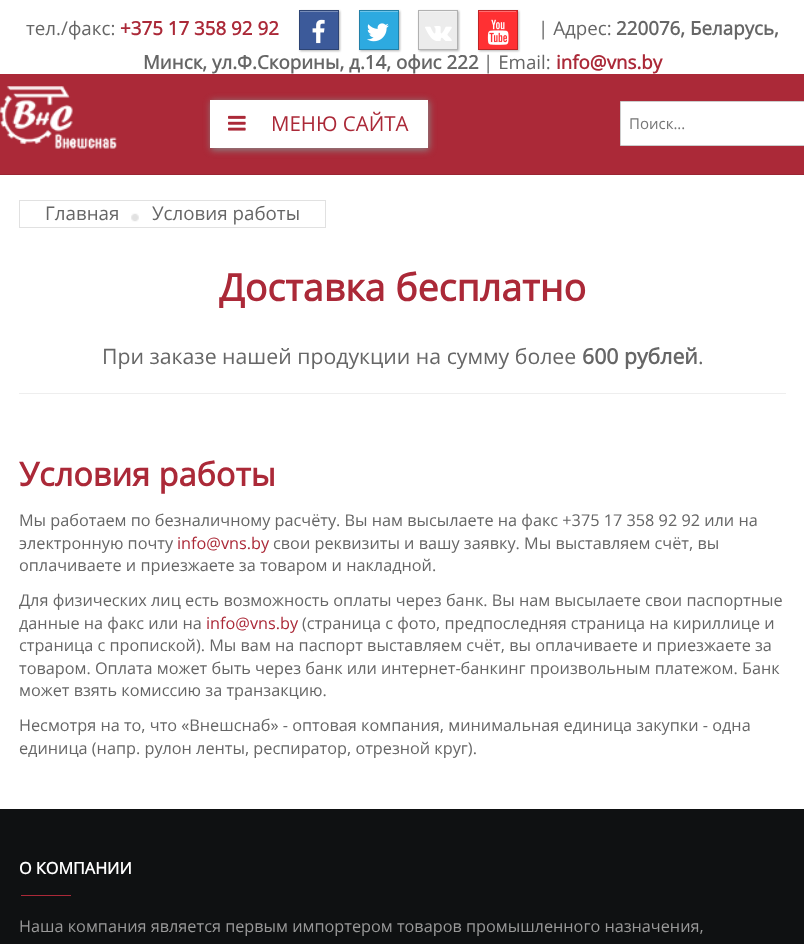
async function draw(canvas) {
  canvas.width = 804;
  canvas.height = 944;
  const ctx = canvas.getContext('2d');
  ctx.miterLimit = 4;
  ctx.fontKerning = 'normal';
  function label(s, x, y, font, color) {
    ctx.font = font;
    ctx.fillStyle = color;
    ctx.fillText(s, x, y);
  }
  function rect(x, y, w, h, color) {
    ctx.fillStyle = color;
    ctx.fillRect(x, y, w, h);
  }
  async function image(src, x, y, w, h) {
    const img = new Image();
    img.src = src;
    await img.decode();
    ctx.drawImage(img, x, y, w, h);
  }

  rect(0, 0, 804, 944, '#fff');
  label('тел./факс:', 26, 35, '18.75px Open Sans', '#666');
  label('+375 17 358 92 92', 120, 35, 'bold 18.75px Open Sans', '#ab2938');
  ctx.fillStyle = '#0000004d';
  ctx.filter = 'blur(1px)';
  ctx.beginPath();
  ctx.rect(300, 11, 40, 40);
  ctx.fill();
  ctx.filter = 'none';
  rect(300, 12, 38, 37, '#3c5a9a');
  rect(300, 11, 38, 1, '#778cb8');
  ctx.strokeStyle = '#2d4474';
  ctx.strokeRect(299.5, 10.5, 39, 39);
  await image('assets/img1.png', 312, 19, 13, 25);
  ctx.fillStyle = '#0000004d';
  ctx.filter = 'blur(1px)';
  ctx.beginPath();
  ctx.rect(360, 11, 40, 40);
  ctx.fill();
  ctx.filter = 'none';
  rect(360, 12, 38, 37, '#2daae0');
  rect(360, 11, 38, 1, '#6cc4e9');
  ctx.strokeStyle = '#2280a8';
  ctx.strokeRect(359.5, 10.5, 39, 39);
  await image('assets/img2.png', 367, 23, 22, 19);
  ctx.fillStyle = '#0000004d';
  ctx.filter = 'blur(1px)';
  ctx.beginPath();
  ctx.rect(419, 11, 40, 40);
  ctx.fill();
  ctx.filter = 'none';
  rect(419, 11, 38, 38, '#ececec');
  rect(419, 11, 37, 1, '#f2f2f2');
  ctx.strokeStyle = '#b1b1b1';
  ctx.strokeRect(418.5, 10.5, 39, 39);
  await image('assets/img3.png', 425, 26, 27, 15);
  ctx.fillStyle = '#0000004d';
  ctx.filter = 'blur(1px)';
  ctx.beginPath();
  ctx.rect(479, 11, 40, 40);
  ctx.fill();
  ctx.filter = 'none';
  rect(479, 11, 38, 38, '#ff3033');
  rect(479, 11, 37, 1, '#ff6e70');
  ctx.strokeStyle = '#bf2426';
  ctx.strokeRect(478.5, 10.5, 39, 39);
  await image('assets/img4.png', 487, 19, 22, 26);
  label('| Адрес:', 538, 35, '18.75px Open Sans', '#666');
  label('220076, Беларусь,', 616, 35, 'bold 18.75px Open Sans', '#666');
  label('Минск, ул.Ф.Скорины, д.14, офис 222', 143, 69, 'bold 18.75px Open Sans', '#666');
  label('| Email:', 483, 69, '18.75px Open Sans', '#666');
  label('info@vns.by', 556, 69, 'bold 18.75px Open Sans', '#ab2938');
  rect(0, 74, 804, 100, '#ab2938');
  rect(0, 174, 804, 1, '#9a2532');
  await image('assets/img5.png', 0, 86, 117, 63);
  ctx.fillStyle = '#888';
  ctx.filter = 'blur(3.5px)';
  ctx.beginPath();
  ctx.rect(211, 101, 218, 49);
  ctx.fill();
  ctx.filter = 'none';
  rect(210, 100, 218, 48, '#fff');
  await image('assets/img6.png', 228, 115, 18, 16);
  label('МЕНЮ САЙТА', 271, 131, '20.5px Open Sans', '#ab2938');
  ctx.fillStyle = '#fff';
  ctx.beginPath();
  ctx.rect(620.5, 101.5, 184, 44);
  ctx.fill();
  ctx.strokeStyle = '#ccc';
  ctx.stroke();
  label('Поиск...', 629, 129, '15px Open Sans', '#757575');
  ctx.strokeStyle = '#e1e1e1';
  ctx.strokeRect(19.5, 200.5, 306, 27);
  label('Главная', 45, 220, '18.75px Open Sans', '#666');
  await image('assets/img7.png', 131, 213, 8, 9);
  label('Условия работы', 152, 220, '18.75px Open Sans', '#666');
  label('Доставка бесплатно', 219, 301, 'bold 37.5px Open Sans', '#ab2938');
  label('При заказе нашей продукции на сумму более', 102, 364, '21.25px Open Sans', '#666');
  label('600 рублей', 582, 364, 'bold 21.25px Open Sans', '#666');
  label('.', 698, 364, '21.25px Open Sans', '#666');
  rect(19, 393, 767, 1, '#eee');
  label('Условия работы', 19, 486, 'bold 32.5px Open Sans', '#ab2938');
  label('Мы работаем по безналичному расчёту. Вы нам высылаете на факс +375 17 358 92 92 или на', 19, 526, '16.25px Open Sans', '#666');
  label('электронную почту', 19, 549, '16.25px Open Sans', '#666');
  label('info@vns.by', 177, 549, '16.25px Open Sans', '#ab2938');
  label('свои реквизиты и вашу заявку. Мы выставляем счёт, вы', 273, 549, '16.25px Open Sans', '#666');
  label('оплачиваете и приезжаете за товаром и накладной.', 19, 571, '16.25px Open Sans', '#666');
  ctx.save();
  ctx.beginPath();
  ctx.rect(19, 456, 767, 315);
  ctx.clip();
  label('Для физических лиц есть возможность оплаты через банк. Вы нам высылаете свои паспортные', 19, 606, '16.25px Open Sans', '#666');
  ctx.restore();
  label('данные на факс или на', 19, 629, '16.25px Open Sans', '#666');
  label('info@vns.by', 206, 629, '16.25px Open Sans', '#ab2938');
  label('(страница с фото, предпоследняя страница на кириллице и', 302, 629, '16.25px Open Sans', '#666');
  label('страница с пропиской). Мы вам на паспорт выставляем счёт, вы оплачиваете и приезжаете за', 19, 651, '16.25px Open Sans', '#666');
  label('товаром. Оплата может быть через банк или интернет-банкинг произвольным платежом. Банк', 19, 674, '16.25px Open Sans', '#666');
  label('может взять комиссию за транзакцию.', 19, 696, '16.25px Open Sans', '#666');
  label('Несмотря на то, что «Внешснаб» - оптовая компания, минимальная единица закупки - одна', 19, 731, '16.25px Open Sans', '#666');
  label('единица (напр. рулон ленты, респиратор, отрезной круг).', 19, 754, '16.25px Open Sans', '#666');
  rect(0, 809, 804, 135, '#0f1112');
  label('О КОМПАНИИ', 19, 874, 'bold 16.25px Open Sans', '#fff');
  rect(21, 895, 50, 1, '#ab2938');
  label('Наша компания является первым импортером товаров промышленного назначения,', 19, 932, '16.25px Open Sans', '#999');
}

draw(document.querySelector('canvas'));
